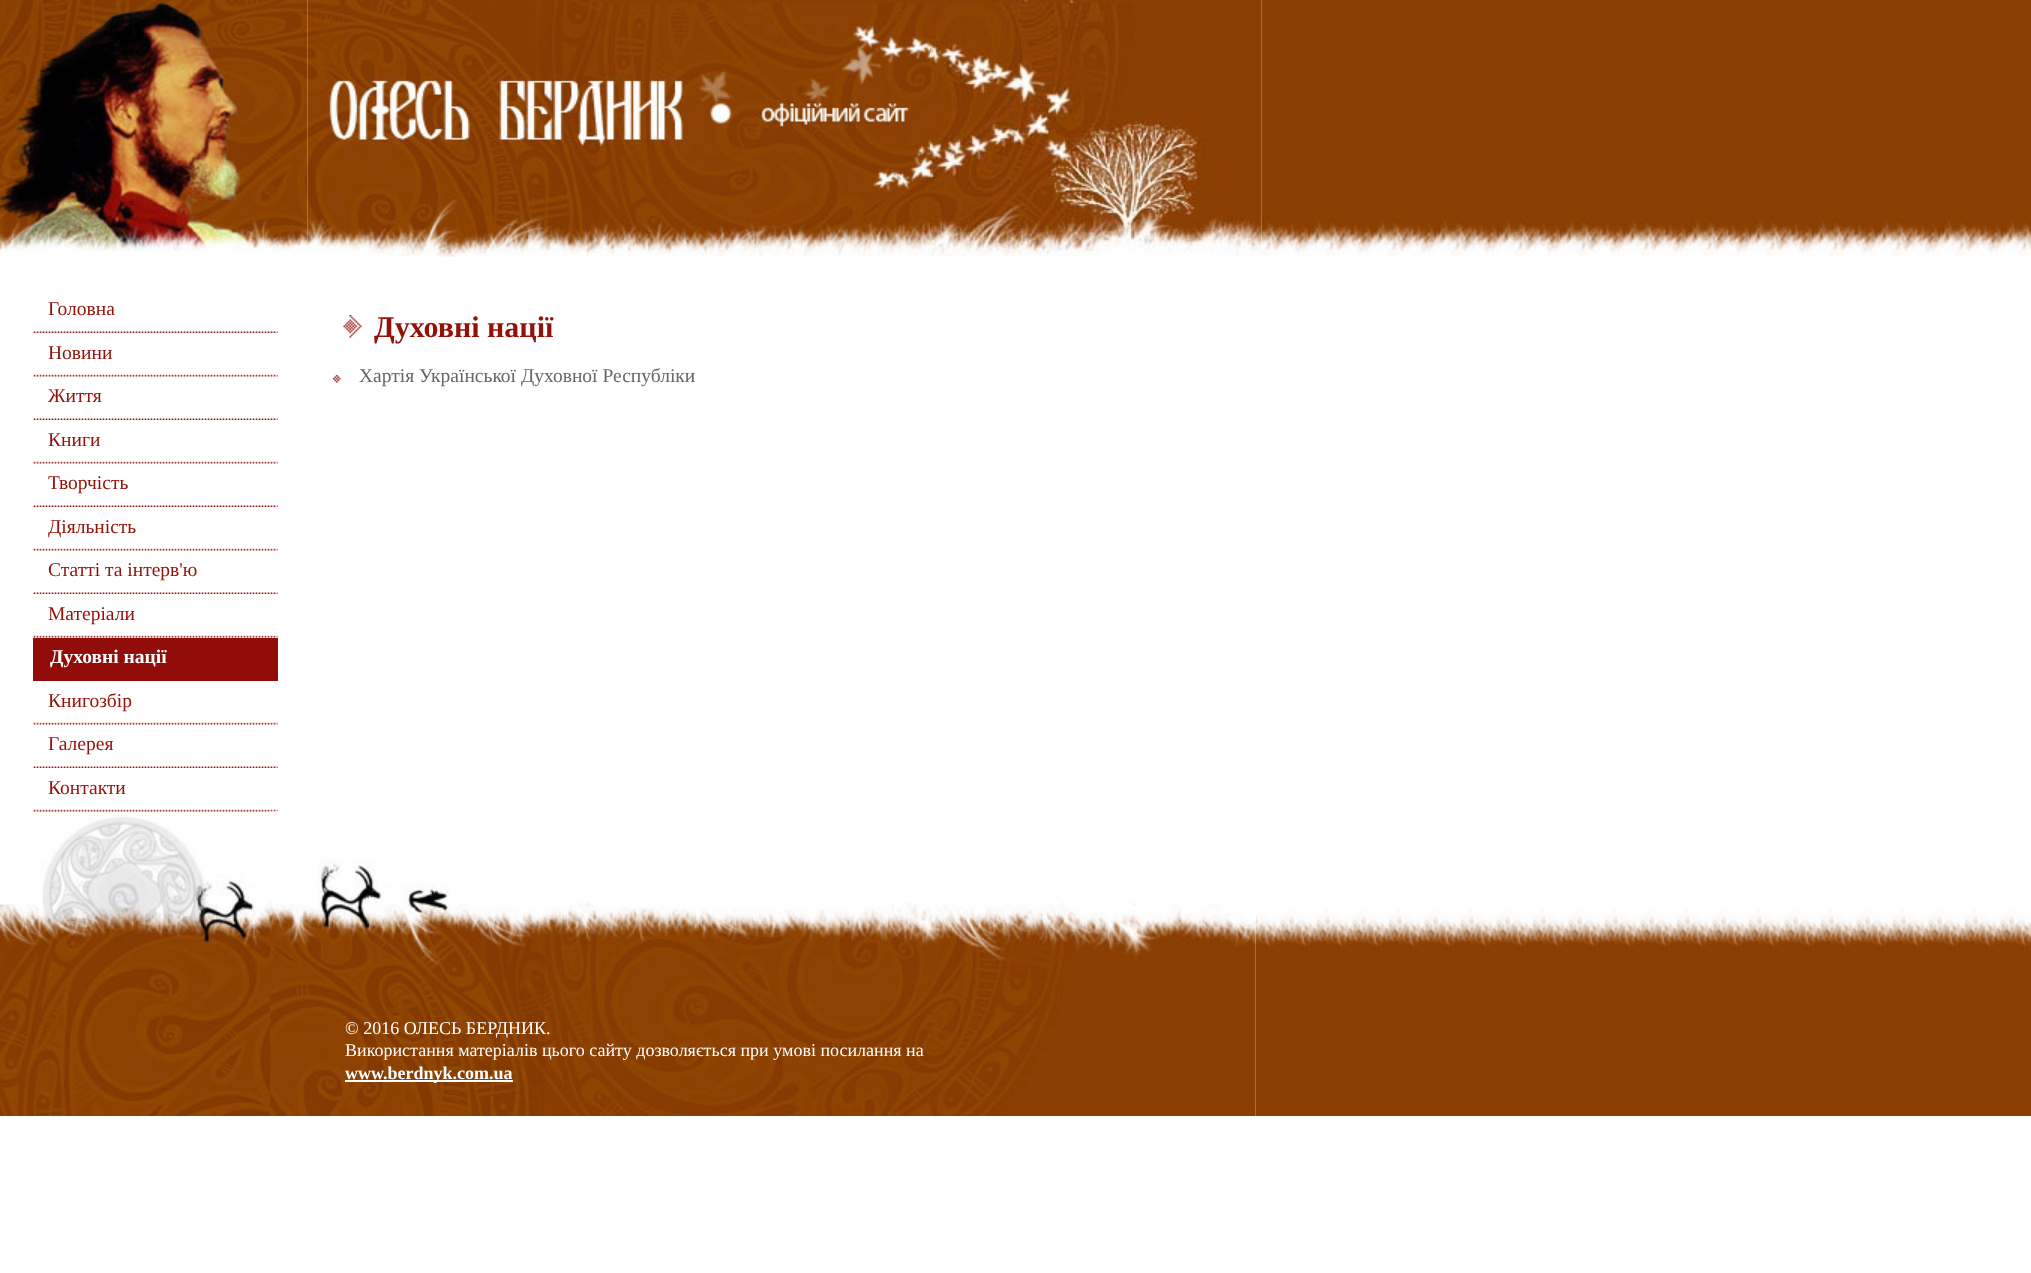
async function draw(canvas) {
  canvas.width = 2031;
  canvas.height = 1273;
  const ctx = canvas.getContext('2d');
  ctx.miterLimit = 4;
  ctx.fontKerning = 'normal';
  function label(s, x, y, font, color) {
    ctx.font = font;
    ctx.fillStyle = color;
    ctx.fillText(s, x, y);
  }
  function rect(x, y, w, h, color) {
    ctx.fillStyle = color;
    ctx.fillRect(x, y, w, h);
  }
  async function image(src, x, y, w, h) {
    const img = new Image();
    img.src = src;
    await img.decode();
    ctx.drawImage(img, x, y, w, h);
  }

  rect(0, 0, 2031, 1273, '#fff');
  await image('assets/img1.png', 0, 0, 308, 252);
  await image('assets/img2.png', 307, 0, 623, 257);
  await image('assets/img4.png', 1261, 0, 770, 257);
  await image('assets/img3.png', 930, 0, 332, 257);
  await image('assets/img5.png', 33, 331, 245, 2);
  label('Головна', 48, 315, '19.5px Liberation Serif', '#921108');
  await image('assets/img6.png', 33, 374, 245, 3);
  label('Новини', 48, 359, '19.5px Liberation Serif', '#921108');
  await image('assets/img5.png', 33, 418, 245, 2);
  label('Життя', 48, 402, '19.5px Liberation Serif', '#921108');
  await image('assets/img6.png', 33, 461, 245, 3);
  label('Книги', 48, 446, '19.5px Liberation Serif', '#921108');
  await image('assets/img5.png', 33, 505, 245, 2);
  label('Творчість', 48, 489, '19.5px Liberation Serif', '#921108');
  await image('assets/img6.png', 33, 548, 245, 3);
  label('Діяльність', 48, 533, '19.5px Liberation Serif', '#921108');
  await image('assets/img5.png', 33, 592, 245, 2);
  label('Статті та інтерв\'ю', 48, 576, '19.5px Liberation Serif', '#921108');
  await image('assets/img6.png', 33, 635, 245, 3);
  label('Матеріали', 48, 620, '19.5px Liberation Serif', '#921108');
  rect(33, 638, 245, 43, '#920c0a');
  label('Духовні нації', 50, 663, 'bold 19.5px Liberation Serif', '#fff');
  await image('assets/img6.png', 33, 722, 245, 3);
  label('Книгозбір', 48, 707, '19.5px Liberation Serif', '#921108');
  await image('assets/img5.png', 33, 766, 245, 2);
  label('Галерея', 48, 750, '19.5px Liberation Serif', '#921108');
  await image('assets/img6.png', 33, 809, 245, 3);
  label('Контакти', 48, 794, '19.5px Liberation Serif', '#921108');
  await image('assets/img7.png', 343, 315, 19, 23);
  label('Духовні нації', 374, 337, 'bold 30px Liberation Serif', '#921108');
  await image('assets/img8.png', 333, 375, 8, 8);
  label('Хартія Української Духовної Республіки', 359, 382, '19.5px Liberation Serif', '#666');
  await image('assets/img9.png', 0, 816, 270, 300);
  await image('assets/img10.png', 270, 811, 798, 305);
  label('© 2016 ОЛЕСЬ БЕРДНИК.', 345, 1034, '18px Liberation Serif', '#fff');
  label('Використання матеріалів цього сайту дозволяється при умові посилання на', 345, 1056, '18px Liberation Serif', '#fff');
  rect(345, 1080, 168, 2, '#fff');
  label('www.berdnyk.com.ua', 345, 1079, 'bold 18px Liberation Serif', '#fff');
  await image('assets/img12.png', 1255, 908, 776, 208);
  await image('assets/img11.png', 1068, 903, 188, 213);
}

draw(document.querySelector('canvas'));
